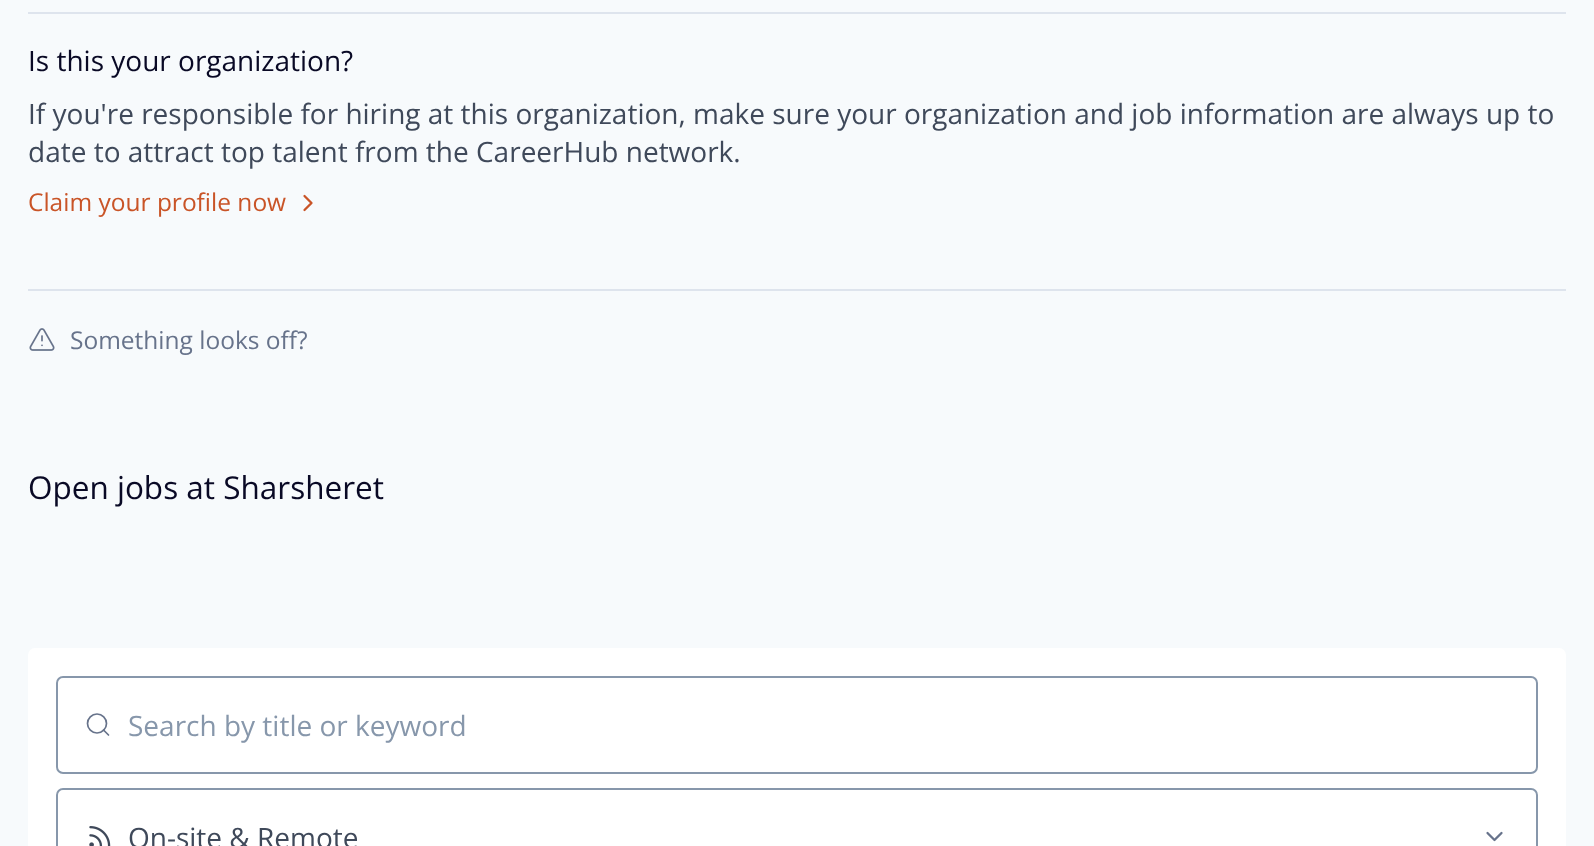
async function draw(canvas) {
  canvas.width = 1594;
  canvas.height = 846;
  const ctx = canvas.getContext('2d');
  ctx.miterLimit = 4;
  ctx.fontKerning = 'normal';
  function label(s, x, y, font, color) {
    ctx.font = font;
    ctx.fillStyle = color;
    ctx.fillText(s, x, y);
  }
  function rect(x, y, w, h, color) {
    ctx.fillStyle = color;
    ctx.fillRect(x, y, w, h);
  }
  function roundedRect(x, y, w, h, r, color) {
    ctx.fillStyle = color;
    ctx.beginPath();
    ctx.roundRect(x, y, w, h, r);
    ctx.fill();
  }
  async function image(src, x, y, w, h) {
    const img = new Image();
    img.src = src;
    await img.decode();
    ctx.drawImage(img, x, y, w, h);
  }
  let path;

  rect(0, 0, 1594, 846, '#f7fafc');
  rect(28, 12, 1538, 2, '#dee4ed');
  label('Is this your organization?', 28, 71, '28px Open Sans', '#090925');
  label('If you\'re responsible for hiring at this organization, make sure your organization and job information are always up to', 28, 124, '28px Open Sans', '#3f495a');
  label('date to attract top talent from the CareerHub network.', 28, 162, '28px Open Sans', '#3f495a');
  label('Claim your profile now', 28, 211, '24.5px Open Sans', '#c95427');
  path = new Path2D('M304.5 210L311.5 203L304.5 196');
  ctx.strokeStyle = '#c95427';
  ctx.lineWidth = 2.3;
  ctx.lineCap = 'round';
  ctx.lineJoin = 'round';
  ctx.stroke(path);
  rect(28, 289, 1538, 2, '#dee4ed');
  await image('assets/img1.png', 29, 328, 26, 23);
  label('Something looks off?', 70, 349, '24.5px Open Sans', '#67738b');
  label('Open jobs at Sharsheret', 28, 499, '31.5px Open Sans', '#090925');
  roundedRect(28, 648, 1538, 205, 7, '#fff');
  ctx.beginPath();
  ctx.roundRect(57, 677, 1480, 96, 6);
  ctx.strokeStyle = '#8797ab';
  ctx.lineWidth = 2;
  ctx.lineJoin = 'miter';
  ctx.stroke();
  ctx.beginPath();
  ctx.arc(97, 723.5, 9.5, 0, 2 * Math.PI);
  ctx.strokeStyle = '#67738b';
  ctx.lineWidth = 1.7;
  ctx.stroke();
  path = new Path2D('M108.5 735L103.5 730');
  ctx.lineJoin = 'round';
  ctx.stroke(path);
  label('Search by title or keyword', 128, 736, '28px Open Sans', '#8797ab');
  ctx.beginPath();
  ctx.roundRect(57, 789, 1480, 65, 6);
  ctx.strokeStyle = '#8797ab';
  ctx.lineWidth = 2;
  ctx.lineJoin = 'miter';
  ctx.stroke();
  await image('assets/img2.png', 89, 826, 22, 20);
  label('On-site & Remote', 128, 848, '28px Open Sans', '#3f495a');
  path = new Path2D('M1487.5 833L1494.5 840L1501.5 833');
  ctx.strokeStyle = '#67738b';
  ctx.lineWidth = 2.3;
  ctx.lineJoin = 'round';
  ctx.stroke(path);
}

draw(document.querySelector('canvas'));
